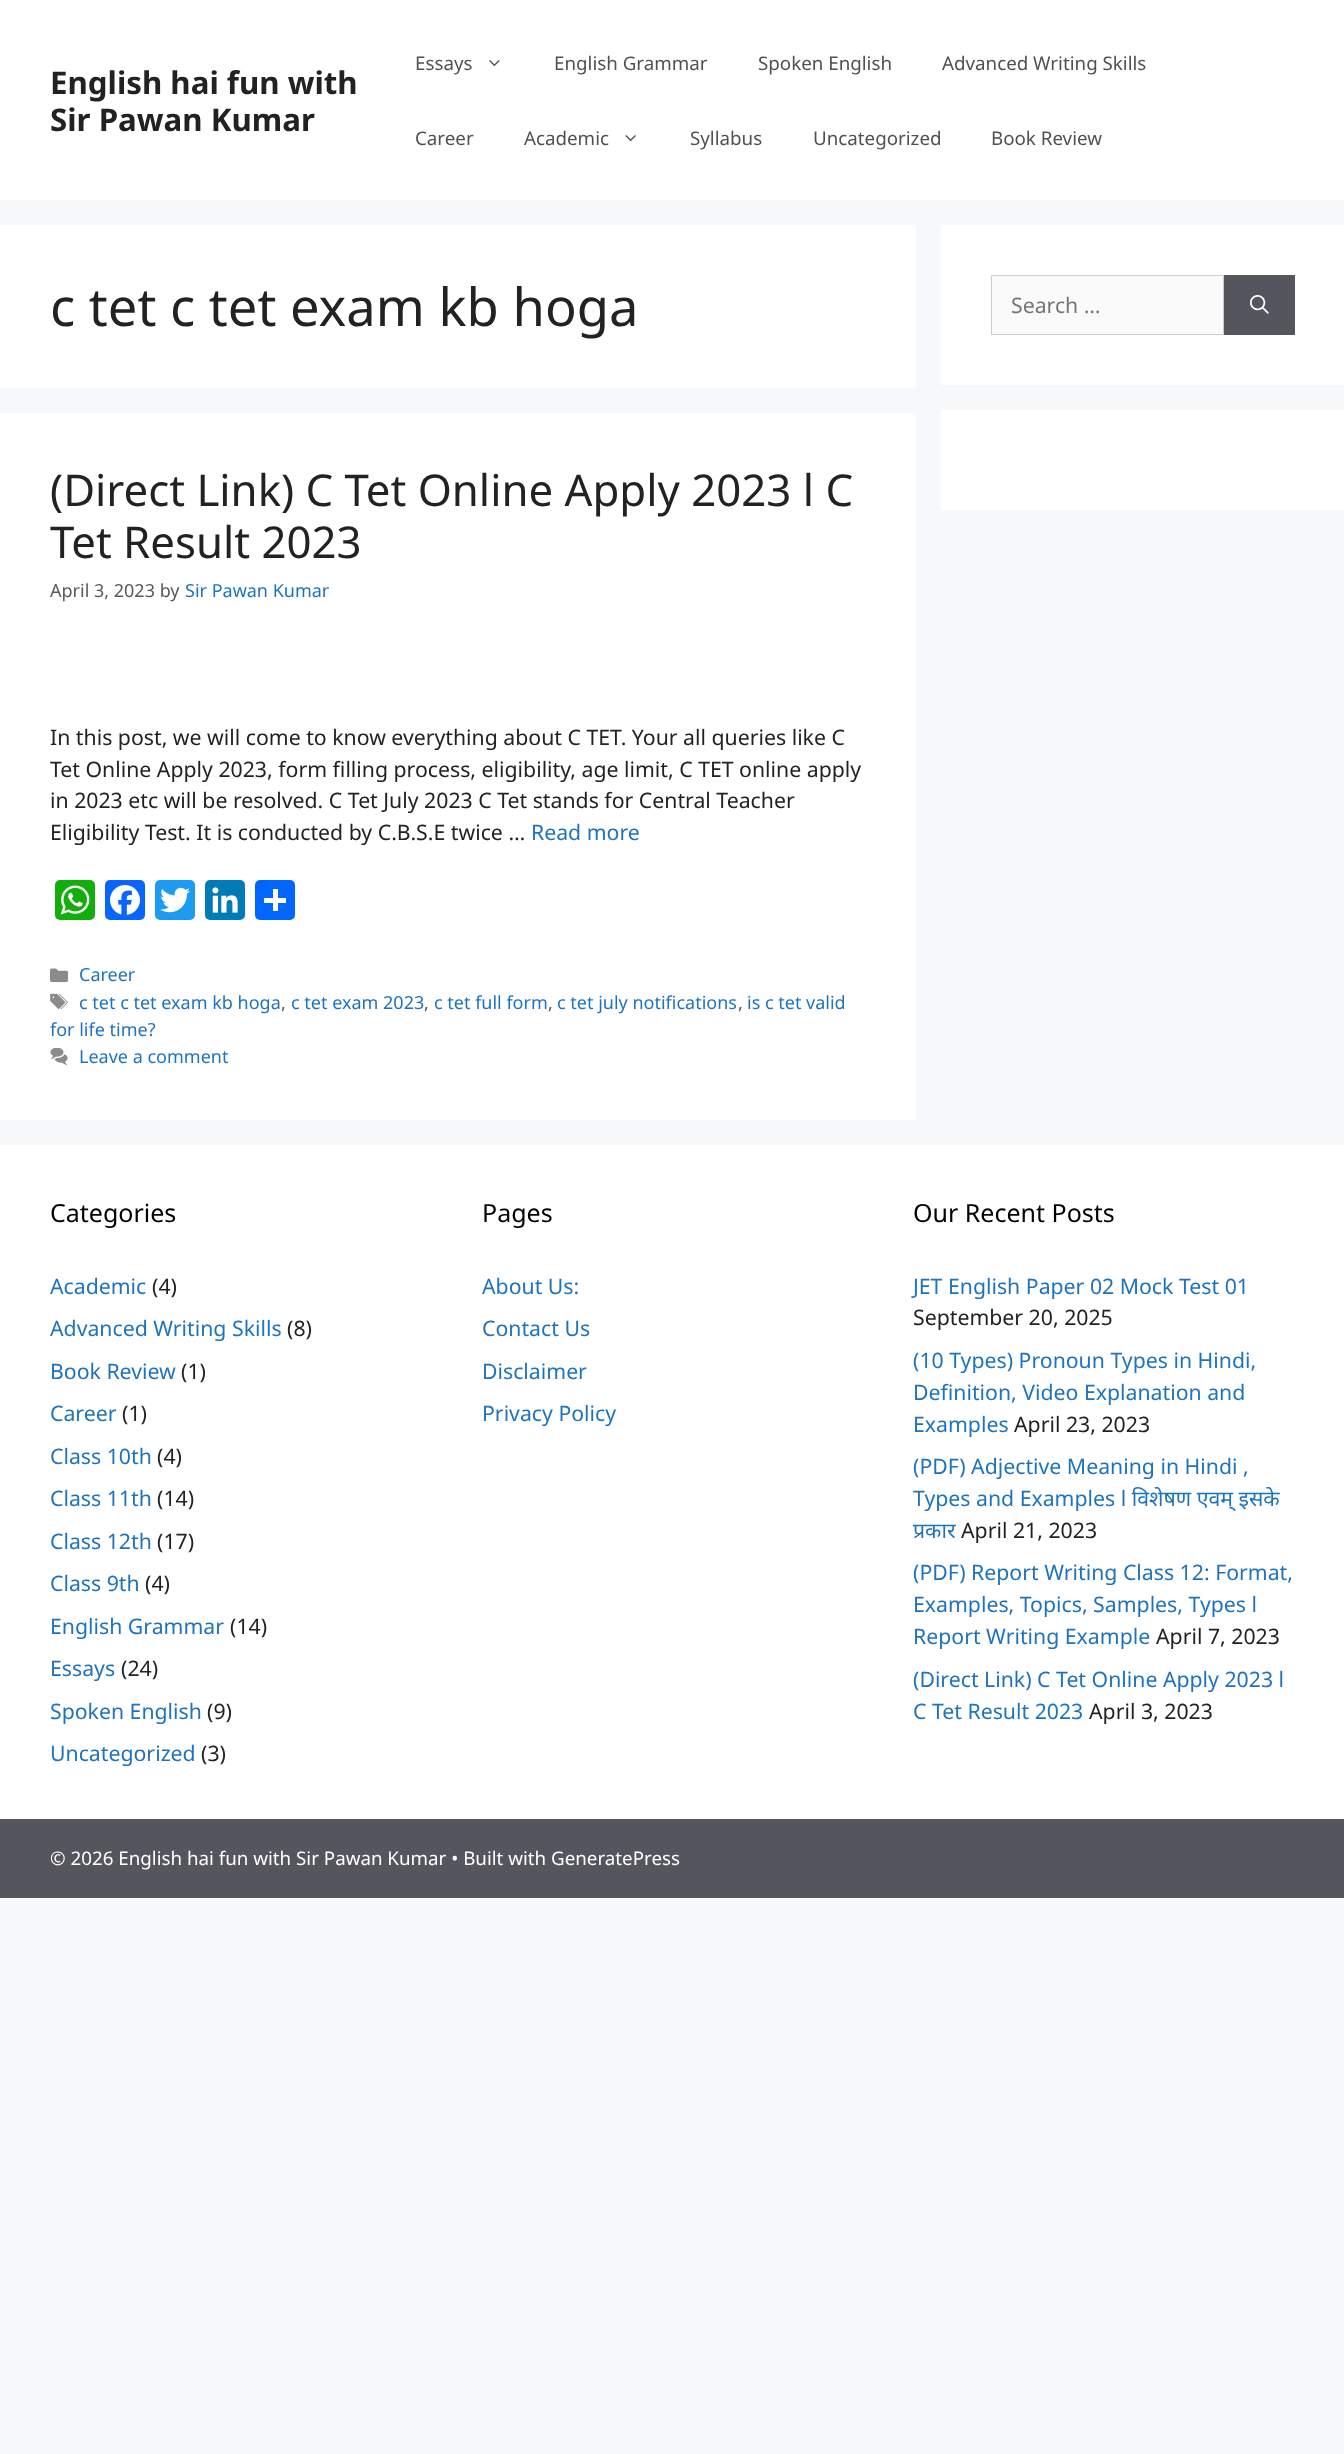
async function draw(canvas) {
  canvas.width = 1344;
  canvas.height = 2454;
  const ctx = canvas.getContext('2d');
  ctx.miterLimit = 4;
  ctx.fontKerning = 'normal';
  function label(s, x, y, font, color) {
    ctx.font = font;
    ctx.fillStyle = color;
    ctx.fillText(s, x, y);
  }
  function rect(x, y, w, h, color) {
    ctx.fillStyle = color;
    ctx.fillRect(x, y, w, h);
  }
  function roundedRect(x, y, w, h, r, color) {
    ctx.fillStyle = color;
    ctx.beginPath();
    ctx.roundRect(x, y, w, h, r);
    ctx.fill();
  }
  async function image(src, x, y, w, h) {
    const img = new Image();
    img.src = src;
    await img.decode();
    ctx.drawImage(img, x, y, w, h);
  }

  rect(0, 0, 1344, 2454, '#f7f8f9');
  rect(0, 0, 1344, 200, '#fff');
  label('English hai fun with', 50, 94, 'bold 31.25px Noto Sans', '#222');
  label('Sir Pawan Kumar', 50, 131, 'bold 31.25px Noto Sans', '#222');
  label('Essays', 415, 70, '18.75px Noto Sans', '#515151');
  await image('assets/img1.png', 489, 60, 11, 7);
  label('English Grammar', 554, 70, '18.75px Noto Sans', '#515151');
  label('Spoken English', 758, 70, '18.75px Noto Sans', '#515151');
  label('Advanced Writing Skills', 942, 70, '18.75px Noto Sans', '#515151');
  label('Career', 415, 145, '18.75px Noto Sans', '#515151');
  label('Academic', 524, 145, '18.75px Noto Sans', '#515151');
  await image('assets/img2.png', 625, 135, 11, 7);
  label('Syllabus', 690, 145, '18.75px Noto Sans', '#515151');
  label('Uncategorized', 813, 145, '18.75px Noto Sans', '#515151');
  label('Book Review', 991, 145, '18.75px Noto Sans', '#515151');
  rect(0, 225, 916, 163, '#fff');
  label('c tet c tet exam kb hoga', 50, 326, '52.5px Noto Sans', '#222');
  rect(0, 413, 916, 707, '#fff');
  label('(Direct Link) C Tet Online Apply 2023 l C', 50, 506, '43.75px Noto Sans', '#222');
  label('Tet Result 2023', 50, 558, '43.75px Noto Sans', '#222');
  label('April 3, 2023 by', 50, 597, '18px Noto Sans', '#595959');
  label('Sir Pawan Kumar', 185, 597, '18px Noto Sans', '#1e73be');
  label('In this post, we will come to know everything about C TET. Your all queries like C', 50, 745, '21.25px Noto Sans', '#222');
  label('Tet Online Apply 2023, form filling process, eligibility, age limit, C TET online apply', 50, 777, '21.25px Noto Sans', '#222');
  label('in 2023 etc will be resolved. C Tet July 2023 C Tet stands for Central Teacher', 50, 808, '21.25px Noto Sans', '#222');
  label('Eligibility Test. It is conducted by C.B.S.E twice …', 50, 840, '21.25px Noto Sans', '#222');
  label('Read more', 531, 840, '21.25px Noto Sans', '#1e73be');
  roundedRect(55, 880, 40, 40, 5, '#12af0a');
  await image('assets/img3.png', 60, 885, 30, 30);
  roundedRect(105, 880, 40, 40, 5, '#0866ff');
  await image('assets/img4.png', 110, 885, 30, 30);
  roundedRect(155, 880, 40, 40, 5, '#1d9bf0');
  await image('assets/img5.png', 160, 887, 30, 26);
  roundedRect(205, 880, 40, 40, 5, '#007bb5');
  await image('assets/img6.png', 212, 887, 26, 26);
  roundedRect(255, 880, 40, 40, 5, '#0166ff');
  rect(273, 889, 5, 22, '#fff');
  rect(264, 898, 22, 5, '#fff');
  await image('assets/img7.png', 50, 968, 18, 15);
  label('Career', 79, 981, '18px Noto Sans', '#1e73be');
  await image('assets/img8.png', 50, 993, 18, 16);
  label('c tet c tet exam kb hoga', 79, 1009, '18px Noto Sans', '#1e73be');
  label(',', 281, 1009, '18px Noto Sans', '#595959');
  label('c tet exam 2023', 291, 1009, '18px Noto Sans', '#1e73be');
  label(',', 424, 1009, '18px Noto Sans', '#595959');
  label('c tet full form', 434, 1009, '18px Noto Sans', '#1e73be');
  label(',', 548, 1009, '18px Noto Sans', '#595959');
  label('c tet july notifications', 557, 1009, '18px Noto Sans', '#1e73be');
  label(',', 738, 1009, '18px Noto Sans', '#595959');
  label('is c tet valid', 747, 1009, '18px Noto Sans', '#1e73be');
  label('for life time?', 50, 1036, '18px Noto Sans', '#1e73be');
  await image('assets/img9.png', 50, 1048, 18, 17);
  label('Leave a comment', 79, 1063, '18px Noto Sans', '#1e73be');
  rect(941, 225, 403, 160, '#fff');
  ctx.fillStyle = '#fafafa';
  ctx.beginPath();
  ctx.rect(991.5, 275.5, 232, 59);
  ctx.fill();
  ctx.strokeStyle = '#ccc';
  ctx.stroke();
  label('Search …', 1011, 313, '21.25px Noto Sans', '#757575');
  rect(1224, 275, 71, 60, '#55555e');
  await image('assets/img10.png', 1250, 295, 19, 19);
  rect(941, 410, 403, 100, '#fff');
  rect(0, 1145, 1344, 674, '#fff');
  label('Categories', 50, 1222, '25px Noto Sans', '#000');
  label('Academic', 50, 1294, '21.25px Noto Sans', '#1e73be');
  label('(4)', 152, 1294, '21.25px Noto Sans', '#222');
  label('Advanced Writing Skills', 50, 1336, '21.25px Noto Sans', '#1e73be');
  label('(8)', 287, 1336, '21.25px Noto Sans', '#222');
  label('Book Review', 50, 1379, '21.25px Noto Sans', '#1e73be');
  label('(1)', 181, 1379, '21.25px Noto Sans', '#222');
  label('Career', 50, 1421, '21.25px Noto Sans', '#1e73be');
  label('(1)', 122, 1421, '21.25px Noto Sans', '#222');
  label('Class 10th', 50, 1464, '21.25px Noto Sans', '#1e73be');
  label('(4)', 157, 1464, '21.25px Noto Sans', '#222');
  label('Class 11th', 50, 1506, '21.25px Noto Sans', '#1e73be');
  label('(14)', 157, 1506, '21.25px Noto Sans', '#222');
  label('Class 12th', 50, 1549, '21.25px Noto Sans', '#1e73be');
  label('(17)', 157, 1549, '21.25px Noto Sans', '#222');
  label('Class 9th', 50, 1591, '21.25px Noto Sans', '#1e73be');
  label('(4)', 145, 1591, '21.25px Noto Sans', '#222');
  label('English Grammar', 50, 1634, '21.25px Noto Sans', '#1e73be');
  label('(14)', 230, 1634, '21.25px Noto Sans', '#222');
  label('Essays', 50, 1676, '21.25px Noto Sans', '#1e73be');
  label('(24)', 121, 1676, '21.25px Noto Sans', '#222');
  label('Spoken English', 50, 1719, '21.25px Noto Sans', '#1e73be');
  label('(9)', 207, 1719, '21.25px Noto Sans', '#222');
  label('Uncategorized', 50, 1761, '21.25px Noto Sans', '#1e73be');
  label('(3)', 201, 1761, '21.25px Noto Sans', '#222');
  label('Pages', 482, 1222, '25px Noto Sans', '#000');
  label('About Us:', 482, 1294, '21.25px Noto Sans', '#1e73be');
  label('Contact Us', 482, 1336, '21.25px Noto Sans', '#1e73be');
  label('Disclaimer', 482, 1379, '21.25px Noto Sans', '#1e73be');
  label('Privacy Policy', 482, 1421, '21.25px Noto Sans', '#1e73be');
  label('Our Recent Posts', 913, 1222, '25px Noto Sans', '#000');
  label('JET English Paper 02 Mock Test 01', 913, 1294, '21.25px Noto Sans', '#1e73be');
  label('September 20, 2025', 913, 1325, '21.25px Noto Sans', '#222');
  label('(10 Types) Pronoun Types in Hindi,', 913, 1368, '21.25px Noto Sans', '#1e73be');
  label('Definition, Video Explanation and', 913, 1400, '21.25px Noto Sans', '#1e73be');
  label('Examples', 913, 1432, '21.25px Noto Sans', '#1e73be');
  label('April 23, 2023', 1014, 1432, '21.25px Noto Sans', '#222');
  label('(PDF) Adjective Meaning in Hindi ,', 913, 1474, '21.25px Noto Sans', '#1e73be');
  label('Types and Examples l विशेषण एवम् इसके', 913, 1506, '21.25px Noto Sans', '#1e73be');
  label('प्रकार', 913, 1538, '21.25px Noto Sans', '#1e73be');
  label('April 21, 2023', 961, 1538, '21.25px Noto Sans', '#222');
  label('(PDF) Report Writing Class 12: Format,', 913, 1580, '21.25px Noto Sans', '#1e73be');
  label('Examples, Topics, Samples, Types l', 913, 1612, '21.25px Noto Sans', '#1e73be');
  label('Report Writing Example', 913, 1644, '21.25px Noto Sans', '#1e73be');
  label('April 7, 2023', 1156, 1644, '21.25px Noto Sans', '#222');
  label('(Direct Link) C Tet Online Apply 2023 l', 913, 1687, '21.25px Noto Sans', '#1e73be');
  label('C Tet Result 2023', 913, 1719, '21.25px Noto Sans', '#1e73be');
  label('April 3, 2023', 1089, 1719, '21.25px Noto Sans', '#222');
  rect(0, 1819, 1344, 79, '#55555e');
  label('© 2026 English hai fun with Sir Pawan Kumar • Built with GeneratePress', 50, 1865, '18.75px Noto Sans', '#fff');
}

draw(document.querySelector('canvas'));
